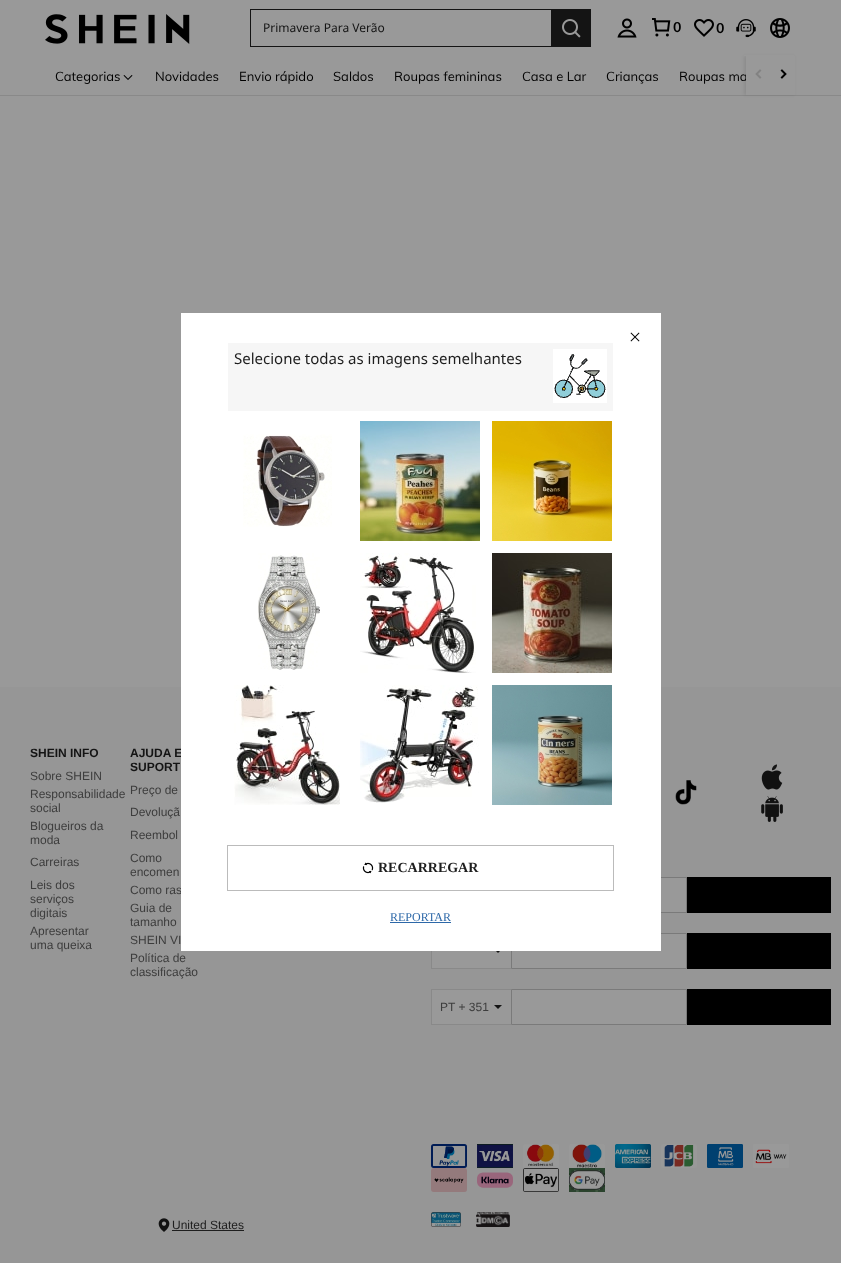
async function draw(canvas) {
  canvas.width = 841;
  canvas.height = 1263;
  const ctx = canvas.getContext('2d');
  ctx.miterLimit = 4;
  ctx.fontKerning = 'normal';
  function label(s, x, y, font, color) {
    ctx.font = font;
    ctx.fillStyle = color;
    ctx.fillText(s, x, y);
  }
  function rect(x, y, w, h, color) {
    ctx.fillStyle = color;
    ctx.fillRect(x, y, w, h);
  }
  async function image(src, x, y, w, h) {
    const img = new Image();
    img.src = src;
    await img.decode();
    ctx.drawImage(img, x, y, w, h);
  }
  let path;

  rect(0, 0, 841, 1263, '#999');
  rect(0, 95, 841, 1, '#898989');
  ctx.fillStyle = '#00000014';
  ctx.filter = 'blur(1.5px)';
  ctx.beginPath();
  ctx.rect(744, 56, 50, 39);
  ctx.fill();
  ctx.filter = 'none';
  rect(744, 55, 50, 1, '#999');
  await image('assets/img1.png', 45, 14, 145, 30);
  rect(250, 9, 301, 1, '#141414');
  rect(250, 46, 301, 1, '#141414');
  rect(250, 9, 1, 38, '#141414');
  label('Primavera Para Verão', 263, 32, '12px Noto Sans', '#141414');
  rect(551, 9, 40, 38, '#141414');
  await image('assets/img2.png', 562, 19, 19, 19);
  await image('assets/img3.png', 617, 18, 20, 20);
  await image('assets/img4.png', 652, 18, 19, 19);
  label('0', 673, 32, 'bold 14px Muli', '#000');
  await image('assets/img5.png', 694, 19, 20, 18);
  label('0', 716, 33, 'bold 14px Muli', '#000');
  await image('assets/img6.png', 736, 19, 20, 19);
  await image('assets/img7.png', 770, 18, 20, 20);
  label('Categorias', 55, 81, '13px Muli', '#000');
  await image('assets/img8.png', 123, 75, 10, 5);
  label('Novidades', 155, 81, '13px Muli', '#000');
  label('Envio rápido', 239, 81, '13px Muli', '#000');
  label('Saldos', 333, 81, '13px Muli', '#000');
  label('Roupas femininas', 394, 81, '13px Muli', '#000');
  label('Casa e Lar', 522, 81, '13px Muli', '#000');
  label('Crianças', 606, 81, '13px Muli', '#000');
  label('Roupas ma', 679, 81, '13px Muli', '#000');
  rect(746, 56, 49, 39, '#999');
  await image('assets/img9.png', 755, 69, 7, 10);
  await image('assets/img10.png', 780, 69, 7, 10);
  rect(0, 687, 841, 576, '#969696');
  label('SHEIN INFO', 30, 757, 'bold 12px Liberation Sans', '#141414');
  label('Sobre SHEIN', 30, 780, '12px Liberation Sans', '#3d3d3d');
  label('Responsabilidade', 30, 798, '12px Liberation Sans', '#3d3d3d');
  label('social', 30, 812, '12px Liberation Sans', '#3d3d3d');
  label('Blogueiros da', 30, 830, '12px Liberation Sans', '#3d3d3d');
  label('moda', 30, 844, '12px Liberation Sans', '#3d3d3d');
  label('Carreiras', 30, 866, '12px Liberation Sans', '#3d3d3d');
  label('Leis dos', 30, 889, '12px Liberation Sans', '#3d3d3d');
  label('serviços', 30, 903, '12px Liberation Sans', '#3d3d3d');
  label('digitais', 30, 917, '12px Liberation Sans', '#3d3d3d');
  label('Apresentar', 30, 935, '12px Liberation Sans', '#3d3d3d');
  label('uma queixa', 30, 949, '12px Liberation Sans', '#3d3d3d');
  label('AJUDA E', 130, 757, 'bold 12px Liberation Sans', '#141414');
  label('SUPORT', 130, 771, 'bold 12px Liberation Sans', '#141414');
  label('Preço de', 130, 794, '12px Liberation Sans', '#3d3d3d');
  label('Devoluçã', 130, 816, '12px Liberation Sans', '#3d3d3d');
  label('Reembol', 130, 839, '12px Liberation Sans', '#3d3d3d');
  label('Como', 130, 862, '12px Liberation Sans', '#3d3d3d');
  label('encomen', 130, 876, '12px Liberation Sans', '#3d3d3d');
  label('Como ras', 130, 894, '12px Liberation Sans', '#3d3d3d');
  label('Guia de', 130, 912, '12px Liberation Sans', '#3d3d3d');
  label('tamanho', 130, 926, '12px Liberation Sans', '#3d3d3d');
  label('SHEIN VI', 130, 944, '12px Liberation Sans', '#3d3d3d');
  label('Política de', 130, 962, '12px Liberation Sans', '#3d3d3d');
  label('classificação', 130, 976, '12px Liberation Sans', '#3d3d3d');
  await image('assets/img11.png', 675, 780, 22, 25);
  await image('assets/img12.png', 761, 764, 22, 26);
  await image('assets/img13.png', 761, 796, 22, 26);
  rect(661, 878, 25, 34, '#999');
  ctx.strokeStyle = '#7a7a7a';
  ctx.strokeRect(431.5, 877.5, 255, 35);
  rect(687, 877, 144, 36, '#000');
  rect(432, 951, 79, 17, '#999');
  rect(431, 968, 80, 1, '#898989');
  rect(431, 951, 1, 18, '#898989');
  ctx.fillStyle = '#141414';
  path = new Path2D('M494 949H502L498 953Z');
  ctx.fill(path);
  ctx.fillStyle = '#999';
  ctx.beginPath();
  ctx.rect(511.5, 933.5, 175, 35);
  ctx.fill();
  ctx.stroke();
  rect(687, 933, 144, 36, '#000');
  rect(432, 990, 79, 34, '#999');
  rect(431, 989, 80, 1, '#898989');
  rect(431, 1024, 80, 1, '#898989');
  rect(431, 989, 1, 36, '#898989');
  label('PT + 351', 440, 1011, '12px Liberation Sans', '#3d3d3d');
  ctx.fillStyle = '#141414';
  path = new Path2D('M494 1005H502L498 1009Z');
  ctx.fill(path);
  ctx.fillStyle = '#999';
  ctx.beginPath();
  ctx.rect(511.5, 989.5, 175, 35);
  ctx.fill();
  ctx.stroke();
  rect(687, 989, 144, 36, '#000');
  await image('assets/img14.png', 431, 1144, 36, 24);
  await image('assets/img15.png', 477, 1144, 36, 24);
  await image('assets/img16.png', 523, 1144, 36, 24);
  await image('assets/img17.png', 569, 1144, 36, 24);
  await image('assets/img18.png', 615, 1144, 36, 24);
  await image('assets/img19.png', 661, 1144, 36, 24);
  await image('assets/img20.png', 707, 1144, 36, 24);
  await image('assets/img21.png', 753, 1144, 36, 24);
  await image('assets/img22.png', 431, 1168, 36, 24);
  await image('assets/img23.png', 477, 1172, 36, 16);
  await image('assets/img24.png', 523, 1168, 36, 24);
  await image('assets/img25.png', 569, 1168, 36, 24);
  await image('assets/img26.png', 158, 1218, 12, 14);
  label('United States', 172, 1229, '12px Liberation Sans', '#1e1e1e');
  rect(172, 1230, 72, 1, '#1e1e1e');
  await image('assets/img27.png', 431, 1212, 30, 15);
  await image('assets/img28.png', 476, 1212, 34, 15);
  ctx.fillStyle = '#0000004d';
  ctx.filter = 'blur(0.5px)';
  ctx.beginPath();
  ctx.rect(181, 313, 480, 638);
  ctx.fill();
  ctx.filter = 'none';
  rect(181, 313, 480, 638, '#fff');
  await image('assets/img29.png', 630, 332, 10, 10);
  rect(228, 343, 385, 68, '#f6f6f6');
  label('Selecione todas as imagens semelhantes', 234, 364, '15px Noto Sans', '#1e1e1e');
  rect(553, 349, 54, 54, '#fff');
  await image('assets/img30.png', 554, 354, 52, 44);
  await image('assets/img31.png', 243, 434, 89, 93);
  await image('assets/img32.png', 360, 421, 120, 120);
  await image('assets/img33.png', 492, 421, 120, 120);
  await image('assets/img34.png', 258, 553, 62, 117);
  await image('assets/img35.png', 360, 553, 116, 120);
  await image('assets/img36.png', 492, 553, 120, 120);
  await image('assets/img37.png', 234, 685, 106, 120);
  await image('assets/img38.png', 360, 685, 119, 118);
  await image('assets/img39.png', 492, 685, 120, 120);
  ctx.strokeStyle = '#bbb';
  ctx.strokeRect(227.5, 845.5, 386, 45);
  await image('assets/img40.png', 362, 862, 12, 12);
  label('RECARREGAR', 378, 872, 'bold 14px Liberation Serif', '#1e1e1e');
  label('REPORTAR', 390, 921, '12px Liberation Serif', '#2d68a8');
  rect(390, 922, 61, 1, '#2d68a8');
}

draw(document.querySelector('canvas'));
